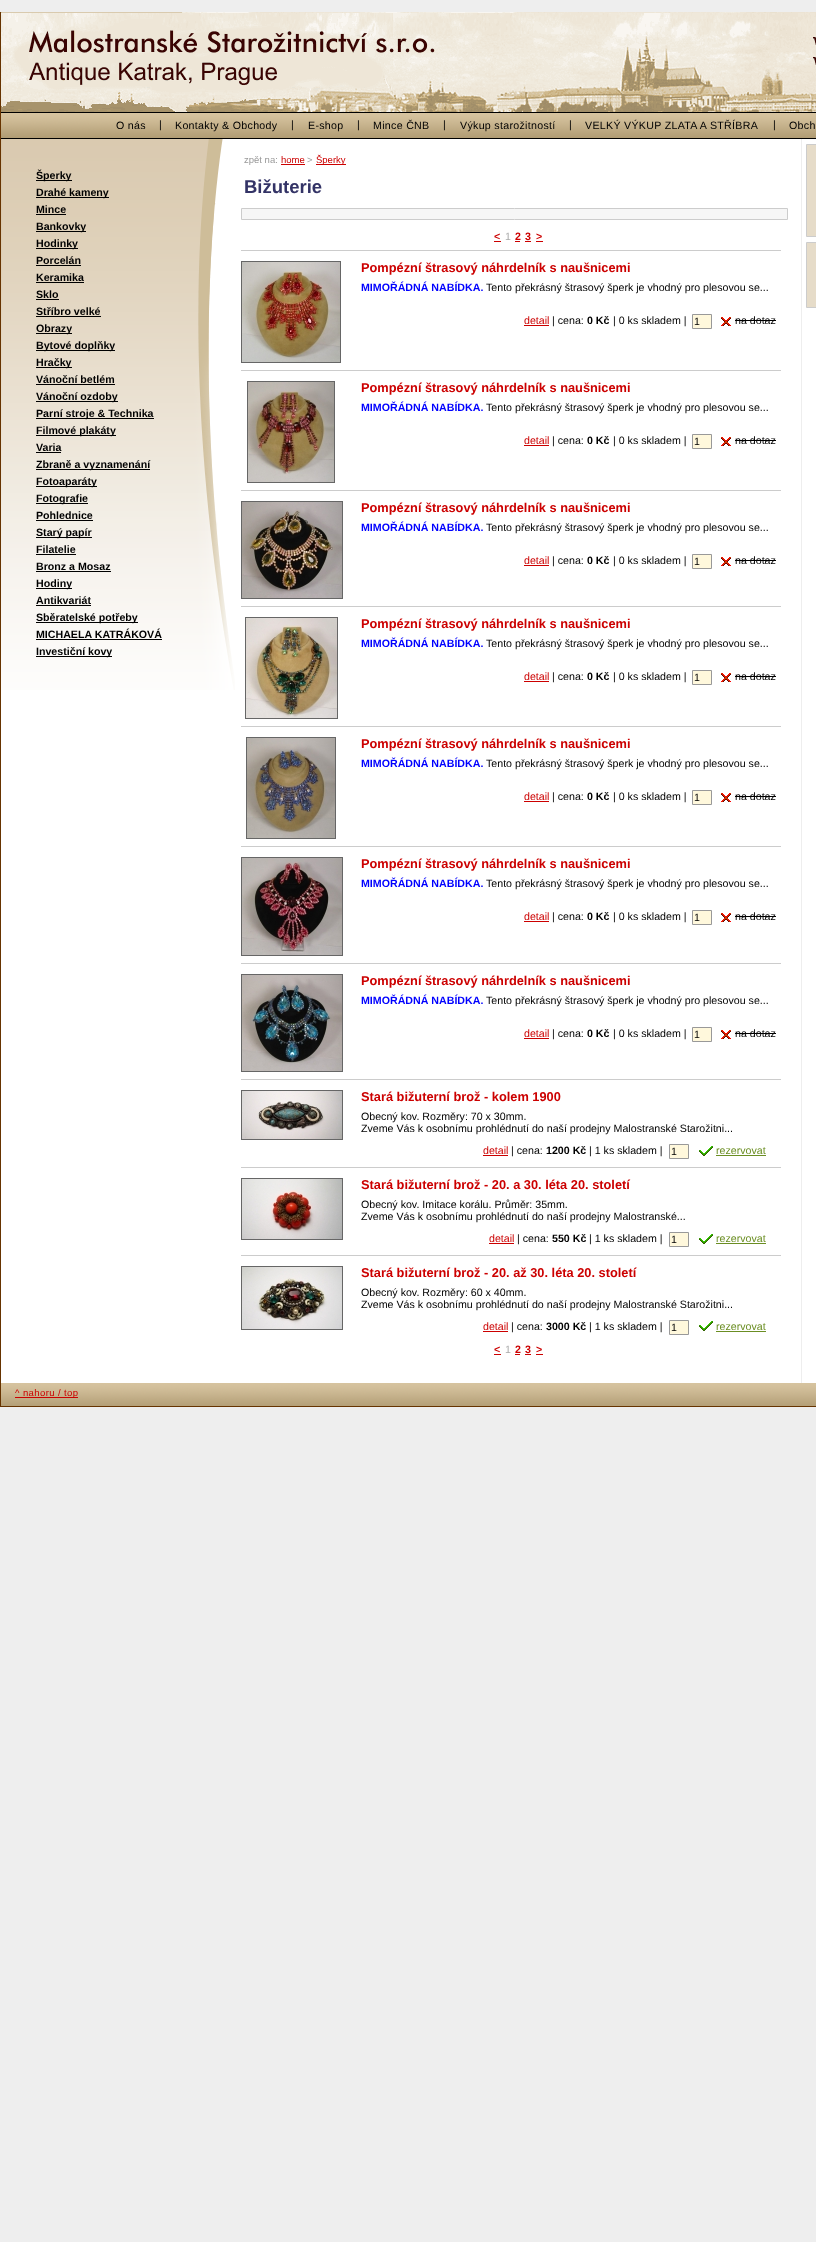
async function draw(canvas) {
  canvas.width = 816;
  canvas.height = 2242;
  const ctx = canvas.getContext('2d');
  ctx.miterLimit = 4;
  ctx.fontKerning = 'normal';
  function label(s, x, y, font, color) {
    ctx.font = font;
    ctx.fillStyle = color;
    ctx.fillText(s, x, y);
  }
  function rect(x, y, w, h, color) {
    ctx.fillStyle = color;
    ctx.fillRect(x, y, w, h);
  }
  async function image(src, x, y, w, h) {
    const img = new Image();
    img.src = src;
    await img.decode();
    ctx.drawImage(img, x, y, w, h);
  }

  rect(0, 0, 816, 2242, '#eee');
  rect(1, 139, 815, 1244, '#fff');
  rect(0, 1406, 816, 1, '#630');
  rect(0, 12, 1, 1395, '#630');
  await image('assets/img1.png', 1, 12, 815, 100);
  await image('assets/img2.png', 1, 113, 815, 25);
  rect(1, 112, 815, 1, '#000');
  rect(1, 138, 815, 1, '#000');
  ctx.letterSpacing = '0.3px';
  label('O nás', 116, 129, '10.65px Liberation Sans', '#000');
  label('|', 159, 128, '10.65px Liberation Sans', '#000');
  label('Kontakty & Obchody', 175, 129, '10.65px Liberation Sans', '#000');
  label('|', 291, 128, '10.65px Liberation Sans', '#000');
  label('E-shop', 308, 129, '10.65px Liberation Sans', '#000');
  label('|', 357, 128, '10.65px Liberation Sans', '#000');
  label('Mince ČNB', 373, 129, '10.65px Liberation Sans', '#000');
  label('|', 443, 128, '10.65px Liberation Sans', '#000');
  label('Výkup starožitností', 460, 129, '10.65px Liberation Sans', '#000');
  label('|', 569, 128, '10.65px Liberation Sans', '#000');
  label('VELKÝ VÝKUP ZLATA A STŘÍBRA', 585, 129, '10.65px Liberation Sans', '#000');
  label('|', 773, 128, '10.65px Liberation Sans', '#000');
  label('Obch', 789, 129, '10.65px Liberation Sans', '#000');
  await image('assets/img3.png', 1, 139, 234, 551);
  rect(801, 139, 1, 1244, '#eee');
  rect(36, 180, 36, 1, '#000');
  ctx.letterSpacing = '0px';
  label('Šperky', 36, 179, 'bold 10.65px Liberation Sans', '#000');
  rect(36, 197, 73, 1, '#000');
  label('Drahé kameny', 36, 196, 'bold 10.65px Liberation Sans', '#000');
  label('Mince', 36, 213, 'bold 10.65px Liberation Sans', '#000');
  rect(36, 214, 30, 1, '#000');
  rect(36, 231, 50, 1, '#000');
  label('Bankovky', 36, 230, 'bold 10.65px Liberation Sans', '#000');
  rect(36, 248, 42, 1, '#000');
  label('Hodinky', 36, 247, 'bold 10.65px Liberation Sans', '#000');
  label('Porcelán', 36, 264, 'bold 10.65px Liberation Sans', '#000');
  rect(36, 265, 45, 1, '#000');
  label('Keramika', 36, 281, 'bold 10.65px Liberation Sans', '#000');
  rect(36, 282, 48, 1, '#000');
  label('Sklo', 36, 298, 'bold 10.65px Liberation Sans', '#000');
  rect(36, 299, 23, 1, '#000');
  label('Stříbro velké', 36, 315, 'bold 10.65px Liberation Sans', '#000');
  rect(36, 316, 65, 1, '#000');
  rect(36, 333, 36, 1, '#000');
  label('Obrazy', 36, 332, 'bold 10.65px Liberation Sans', '#000');
  rect(36, 350, 79, 1, '#000');
  label('Bytové doplňky', 36, 349, 'bold 10.65px Liberation Sans', '#000');
  rect(36, 367, 36, 1, '#000');
  label('Hračky', 36, 366, 'bold 10.65px Liberation Sans', '#000');
  label('Vánoční betlém', 36, 383, 'bold 10.65px Liberation Sans', '#000');
  rect(36, 384, 79, 1, '#000');
  rect(36, 401, 82, 1, '#000');
  label('Vánoční ozdoby', 36, 400, 'bold 10.65px Liberation Sans', '#000');
  rect(36, 418, 118, 1, '#000');
  label('Parní stroje & Technika', 36, 417, 'bold 10.65px Liberation Sans', '#000');
  rect(36, 435, 80, 1, '#000');
  label('Filmové plakáty', 36, 434, 'bold 10.65px Liberation Sans', '#000');
  label('Varia', 36, 451, 'bold 10.65px Liberation Sans', '#000');
  rect(36, 452, 25, 1, '#000');
  rect(36, 469, 114, 1, '#000');
  label('Zbraně a vyznamenání', 36, 468, 'bold 10.65px Liberation Sans', '#000');
  rect(36, 486, 61, 1, '#000');
  label('Fotoaparáty', 36, 485, 'bold 10.65px Liberation Sans', '#000');
  rect(36, 503, 52, 1, '#000');
  label('Fotografie', 36, 502, 'bold 10.65px Liberation Sans', '#000');
  label('Pohlednice', 36, 519, 'bold 10.65px Liberation Sans', '#000');
  rect(36, 520, 57, 1, '#000');
  rect(36, 537, 56, 1, '#000');
  label('Starý papír', 36, 536, 'bold 10.65px Liberation Sans', '#000');
  label('Filatelie', 36, 553, 'bold 10.65px Liberation Sans', '#000');
  rect(36, 554, 40, 1, '#000');
  label('Bronz a Mosaz', 36, 570, 'bold 10.65px Liberation Sans', '#000');
  rect(36, 571, 75, 1, '#000');
  rect(36, 588, 36, 1, '#000');
  label('Hodiny', 36, 587, 'bold 10.65px Liberation Sans', '#000');
  label('Antikvariát', 36, 604, 'bold 10.65px Liberation Sans', '#000');
  rect(36, 605, 55, 1, '#000');
  rect(36, 622, 102, 1, '#000');
  label('Sběratelské potřeby', 36, 621, 'bold 10.65px Liberation Sans', '#000');
  label('MICHAELA KATRÁKOVÁ', 36, 638, 'bold 10.65px Liberation Sans', '#000');
  rect(36, 639, 126, 1, '#000');
  rect(36, 656, 76, 1, '#000');
  label('Investiční kovy', 36, 655, 'bold 10.65px Liberation Sans', '#000');
  label('zpět na:', 244, 163, '9.5px Liberation Sans', '#999');
  label('home', 281, 163, '9.5px Liberation Sans', '#c00');
  rect(281, 164, 24, 1, '#c00');
  label('>', 307, 163, '9.5px Liberation Sans', '#999');
  rect(316, 164, 30, 1, '#c00');
  label('Šperky', 316, 163, '9.5px Liberation Sans', '#c00');
  label('Bižuterie', 244, 193, 'bold 18.5px Liberation Sans', '#336');
  ctx.fillStyle = '#f6f6f6';
  ctx.beginPath();
  ctx.rect(241.5, 208.5, 546, 11);
  ctx.fill();
  ctx.strokeStyle = '#ccc';
  ctx.stroke();
  label('<', 494, 240, 'bold 10.65px Liberation Sans', '#c00');
  rect(494, 241, 7, 1, '#c00');
  label('1', 505, 240, '10.65px Liberation Sans', '#aaa');
  label('2', 515, 240, 'bold 10.65px Liberation Sans', '#c00');
  rect(515, 241, 5, 1, '#c00');
  label('3', 525, 240, 'bold 10.65px Liberation Sans', '#c00');
  rect(525, 241, 6, 1, '#c00');
  label('>', 536, 240, 'bold 10.65px Liberation Sans', '#c00');
  rect(536, 241, 7, 1, '#c00');
  rect(241, 250, 540, 1, '#ccc');
  ctx.strokeStyle = '#666';
  ctx.strokeRect(241.5, 261.5, 99, 101);
  await image('assets/img4.png', 242, 262, 98, 100);
  label('Pompézní štrasový náhrdelník s naušnicemi', 361, 272, 'bold 12.8px Liberation Sans', '#c00');
  label('MIMOŘÁDNÁ NABÍDKA.', 361, 291, 'bold 10.65px Liberation Sans', '#00f');
  label('Tento překrásný štrasový šperk je vhodný pro plesovou se...', 486, 291, '10.65px Liberation Sans', '#000');
  label('detail', 524, 324, '10.65px Liberation Sans', '#c00');
  rect(524, 325, 25, 1, '#c00');
  label('| cena:', 552, 324, '10.65px Liberation Sans', '#000');
  label('0 Kč', 587, 324, 'bold 10.65px Liberation Sans', '#000');
  label('| 0 ks skladem |', 613, 324, '10.65px Liberation Sans', '#000');
  ctx.fillStyle = '#fff8dc';
  ctx.beginPath();
  ctx.rect(692.5, 314.5, 19, 14);
  ctx.fill();
  ctx.strokeStyle = '#999';
  ctx.stroke();
  label('1', 694, 325, '10.65px Liberation Sans', '#000');
  await image('assets/img5.png', 721, 317, 10, 9);
  label('na dotaz', 735, 324, '10.65px Liberation Sans', '#000');
  rect(735, 320, 41, 1, '#000');
  rect(241, 370, 540, 1, '#ccc');
  ctx.strokeStyle = '#666';
  ctx.strokeRect(247.5, 381.5, 87, 101);
  await image('assets/img6.png', 248, 382, 86, 100);
  label('Pompézní štrasový náhrdelník s naušnicemi', 361, 392, 'bold 12.8px Liberation Sans', '#c00');
  label('MIMOŘÁDNÁ NABÍDKA.', 361, 411, 'bold 10.65px Liberation Sans', '#00f');
  label('Tento překrásný štrasový šperk je vhodný pro plesovou se...', 486, 411, '10.65px Liberation Sans', '#000');
  label('detail', 524, 444, '10.65px Liberation Sans', '#c00');
  rect(524, 445, 25, 1, '#c00');
  label('| cena:', 552, 444, '10.65px Liberation Sans', '#000');
  label('0 Kč', 587, 444, 'bold 10.65px Liberation Sans', '#000');
  label('| 0 ks skladem |', 613, 444, '10.65px Liberation Sans', '#000');
  ctx.fillStyle = '#fff8dc';
  ctx.beginPath();
  ctx.rect(692.5, 434.5, 19, 14);
  ctx.fill();
  ctx.strokeStyle = '#999';
  ctx.stroke();
  label('1', 694, 445, '10.65px Liberation Sans', '#000');
  await image('assets/img5.png', 721, 437, 10, 9);
  label('na dotaz', 735, 444, '10.65px Liberation Sans', '#000');
  rect(735, 440, 41, 1, '#000');
  rect(241, 490, 540, 1, '#ccc');
  ctx.strokeStyle = '#666';
  ctx.strokeRect(241.5, 501.5, 101, 97);
  await image('assets/img7.png', 242, 502, 100, 96);
  label('Pompézní štrasový náhrdelník s naušnicemi', 361, 512, 'bold 12.8px Liberation Sans', '#c00');
  label('MIMOŘÁDNÁ NABÍDKA.', 361, 531, 'bold 10.65px Liberation Sans', '#00f');
  label('Tento překrásný štrasový šperk je vhodný pro plesovou se...', 486, 531, '10.65px Liberation Sans', '#000');
  label('detail', 524, 564, '10.65px Liberation Sans', '#c00');
  rect(524, 565, 25, 1, '#c00');
  label('| cena:', 552, 564, '10.65px Liberation Sans', '#000');
  label('0 Kč', 587, 564, 'bold 10.65px Liberation Sans', '#000');
  label('| 0 ks skladem |', 613, 564, '10.65px Liberation Sans', '#000');
  ctx.fillStyle = '#fff8dc';
  ctx.beginPath();
  ctx.rect(692.5, 554.5, 19, 14);
  ctx.fill();
  ctx.strokeStyle = '#999';
  ctx.stroke();
  label('1', 694, 565, '10.65px Liberation Sans', '#000');
  await image('assets/img5.png', 721, 557, 10, 9);
  label('na dotaz', 735, 564, '10.65px Liberation Sans', '#000');
  rect(735, 560, 41, 1, '#000');
  rect(241, 606, 540, 1, '#ccc');
  ctx.strokeStyle = '#666';
  ctx.strokeRect(245.5, 617.5, 92, 101);
  await image('assets/img8.png', 246, 618, 91, 100);
  label('Pompézní štrasový náhrdelník s naušnicemi', 361, 628, 'bold 12.8px Liberation Sans', '#c00');
  label('MIMOŘÁDNÁ NABÍDKA.', 361, 647, 'bold 10.65px Liberation Sans', '#00f');
  label('Tento překrásný štrasový šperk je vhodný pro plesovou se...', 486, 647, '10.65px Liberation Sans', '#000');
  label('detail', 524, 680, '10.65px Liberation Sans', '#c00');
  rect(524, 681, 25, 1, '#c00');
  label('| cena:', 552, 680, '10.65px Liberation Sans', '#000');
  label('0 Kč', 587, 680, 'bold 10.65px Liberation Sans', '#000');
  label('| 0 ks skladem |', 613, 680, '10.65px Liberation Sans', '#000');
  ctx.fillStyle = '#fff8dc';
  ctx.beginPath();
  ctx.rect(692.5, 670.5, 19, 14);
  ctx.fill();
  ctx.strokeStyle = '#999';
  ctx.stroke();
  label('1', 694, 681, '10.65px Liberation Sans', '#000');
  await image('assets/img5.png', 721, 673, 10, 9);
  label('na dotaz', 735, 680, '10.65px Liberation Sans', '#000');
  rect(735, 676, 41, 1, '#000');
  rect(241, 726, 540, 1, '#ccc');
  ctx.strokeStyle = '#666';
  ctx.strokeRect(246.5, 737.5, 89, 101);
  await image('assets/img9.png', 247, 738, 88, 100);
  label('Pompézní štrasový náhrdelník s naušnicemi', 361, 748, 'bold 12.8px Liberation Sans', '#c00');
  label('MIMOŘÁDNÁ NABÍDKA.', 361, 767, 'bold 10.65px Liberation Sans', '#00f');
  label('Tento překrásný štrasový šperk je vhodný pro plesovou se...', 486, 767, '10.65px Liberation Sans', '#000');
  label('detail', 524, 800, '10.65px Liberation Sans', '#c00');
  rect(524, 801, 25, 1, '#c00');
  label('| cena:', 552, 800, '10.65px Liberation Sans', '#000');
  label('0 Kč', 587, 800, 'bold 10.65px Liberation Sans', '#000');
  label('| 0 ks skladem |', 613, 800, '10.65px Liberation Sans', '#000');
  ctx.fillStyle = '#fff8dc';
  ctx.beginPath();
  ctx.rect(692.5, 790.5, 19, 14);
  ctx.fill();
  ctx.strokeStyle = '#999';
  ctx.stroke();
  label('1', 694, 801, '10.65px Liberation Sans', '#000');
  await image('assets/img5.png', 721, 793, 10, 9);
  label('na dotaz', 735, 800, '10.65px Liberation Sans', '#000');
  rect(735, 796, 41, 1, '#000');
  rect(241, 846, 540, 1, '#ccc');
  ctx.strokeStyle = '#666';
  ctx.strokeRect(241.5, 857.5, 101, 98);
  await image('assets/img10.png', 242, 858, 100, 97);
  label('Pompézní štrasový náhrdelník s naušnicemi', 361, 868, 'bold 12.8px Liberation Sans', '#c00');
  label('MIMOŘÁDNÁ NABÍDKA.', 361, 887, 'bold 10.65px Liberation Sans', '#00f');
  label('Tento překrásný štrasový šperk je vhodný pro plesovou se...', 486, 887, '10.65px Liberation Sans', '#000');
  label('detail', 524, 920, '10.65px Liberation Sans', '#c00');
  rect(524, 921, 25, 1, '#c00');
  label('| cena:', 552, 920, '10.65px Liberation Sans', '#000');
  label('0 Kč', 587, 920, 'bold 10.65px Liberation Sans', '#000');
  label('| 0 ks skladem |', 613, 920, '10.65px Liberation Sans', '#000');
  ctx.fillStyle = '#fff8dc';
  ctx.beginPath();
  ctx.rect(692.5, 910.5, 19, 14);
  ctx.fill();
  ctx.strokeStyle = '#999';
  ctx.stroke();
  label('1', 694, 921, '10.65px Liberation Sans', '#000');
  await image('assets/img5.png', 721, 913, 10, 9);
  label('na dotaz', 735, 920, '10.65px Liberation Sans', '#000');
  rect(735, 916, 41, 1, '#000');
  rect(241, 963, 540, 1, '#ccc');
  ctx.strokeStyle = '#666';
  ctx.strokeRect(241.5, 974.5, 101, 97);
  await image('assets/img11.png', 242, 975, 100, 96);
  label('Pompézní štrasový náhrdelník s naušnicemi', 361, 985, 'bold 12.8px Liberation Sans', '#c00');
  label('MIMOŘÁDNÁ NABÍDKA.', 361, 1004, 'bold 10.65px Liberation Sans', '#00f');
  label('Tento překrásný štrasový šperk je vhodný pro plesovou se...', 486, 1004, '10.65px Liberation Sans', '#000');
  label('detail', 524, 1037, '10.65px Liberation Sans', '#c00');
  rect(524, 1038, 25, 1, '#c00');
  label('| cena:', 552, 1037, '10.65px Liberation Sans', '#000');
  label('0 Kč', 587, 1037, 'bold 10.65px Liberation Sans', '#000');
  label('| 0 ks skladem |', 613, 1037, '10.65px Liberation Sans', '#000');
  ctx.fillStyle = '#fff8dc';
  ctx.beginPath();
  ctx.rect(692.5, 1027.5, 19, 14);
  ctx.fill();
  ctx.strokeStyle = '#999';
  ctx.stroke();
  label('1', 694, 1038, '10.65px Liberation Sans', '#000');
  await image('assets/img5.png', 721, 1030, 10, 9);
  label('na dotaz', 735, 1037, '10.65px Liberation Sans', '#000');
  rect(735, 1033, 41, 1, '#000');
  rect(241, 1079, 540, 1, '#ccc');
  ctx.strokeStyle = '#666';
  ctx.strokeRect(241.5, 1090.5, 101, 49);
  await image('assets/img12.png', 242, 1091, 100, 48);
  label('Stará bižuterní brož - kolem 1900', 361, 1101, 'bold 12.8px Liberation Sans', '#c00');
  label('Obecný kov. Rozměry: 70 x 30mm.', 361, 1120, '10.65px Liberation Sans', '#000');
  label('Zveme Vás k osobnímu prohlédnutí do naší prodejny Malostranské Starožitni...', 361, 1132, '10.65px Liberation Sans', '#000');
  label('detail', 483, 1154, '10.65px Liberation Sans', '#c00');
  rect(483, 1155, 25, 1, '#c00');
  label('| cena:', 511, 1154, '10.65px Liberation Sans', '#000');
  label('1200 Kč', 546, 1154, 'bold 10.65px Liberation Sans', '#000');
  label('| 1 ks skladem |', 589, 1154, '10.65px Liberation Sans', '#000');
  ctx.fillStyle = '#fff8dc';
  ctx.beginPath();
  ctx.rect(669.5, 1144.5, 19, 14);
  ctx.fill();
  ctx.strokeStyle = '#999';
  ctx.stroke();
  label('1', 671, 1155, '10.65px Liberation Sans', '#000');
  await image('assets/img13.png', 699, 1146, 14, 10);
  label('rezervovat', 716, 1154, '10.65px Liberation Sans', '#6b8e23');
  rect(716, 1155, 50, 1, '#6b8e23');
  rect(241, 1167, 540, 1, '#ccc');
  ctx.strokeStyle = '#666';
  ctx.strokeRect(241.5, 1178.5, 101, 61);
  await image('assets/img14.png', 242, 1179, 100, 60);
  label('Stará bižuterní brož - 20. a 30. léta 20. století', 361, 1189, 'bold 12.8px Liberation Sans', '#c00');
  label('Obecný kov. Imitace korálu. Průměr: 35mm.', 361, 1208, '10.65px Liberation Sans', '#000');
  label('Zveme Vás k osobnímu prohlédnutí do naší prodejny Malostranské...', 361, 1220, '10.65px Liberation Sans', '#000');
  label('detail', 489, 1242, '10.65px Liberation Sans', '#c00');
  rect(489, 1243, 25, 1, '#c00');
  label('| cena:', 517, 1242, '10.65px Liberation Sans', '#000');
  label('550 Kč', 552, 1242, 'bold 10.65px Liberation Sans', '#000');
  label('| 1 ks skladem |', 589, 1242, '10.65px Liberation Sans', '#000');
  ctx.fillStyle = '#fff8dc';
  ctx.beginPath();
  ctx.rect(669.5, 1232.5, 19, 14);
  ctx.fill();
  ctx.strokeStyle = '#999';
  ctx.stroke();
  label('1', 671, 1243, '10.65px Liberation Sans', '#000');
  await image('assets/img13.png', 699, 1234, 14, 10);
  label('rezervovat', 716, 1242, '10.65px Liberation Sans', '#6b8e23');
  rect(716, 1243, 50, 1, '#6b8e23');
  rect(241, 1255, 540, 1, '#ccc');
  ctx.strokeStyle = '#666';
  ctx.strokeRect(241.5, 1266.5, 101, 63);
  await image('assets/img15.png', 242, 1267, 100, 62);
  label('Stará bižuterní brož - 20. až 30. léta 20. století', 361, 1277, 'bold 12.8px Liberation Sans', '#c00');
  label('Obecný kov. Rozměry: 60 x 40mm.', 361, 1296, '10.65px Liberation Sans', '#000');
  label('Zveme Vás k osobnímu prohlédnutí do naší prodejny Malostranské Starožitni...', 361, 1308, '10.65px Liberation Sans', '#000');
  label('detail', 483, 1330, '10.65px Liberation Sans', '#c00');
  rect(483, 1331, 25, 1, '#c00');
  label('| cena:', 511, 1330, '10.65px Liberation Sans', '#000');
  label('3000 Kč', 546, 1330, 'bold 10.65px Liberation Sans', '#000');
  label('| 1 ks skladem |', 589, 1330, '10.65px Liberation Sans', '#000');
  ctx.fillStyle = '#fff8dc';
  ctx.beginPath();
  ctx.rect(669.5, 1320.5, 19, 14);
  ctx.fill();
  ctx.strokeStyle = '#999';
  ctx.stroke();
  label('1', 671, 1331, '10.65px Liberation Sans', '#000');
  await image('assets/img13.png', 699, 1321, 14, 10);
  label('rezervovat', 716, 1330, '10.65px Liberation Sans', '#6b8e23');
  rect(716, 1331, 50, 1, '#6b8e23');
  label('<', 494, 1353, 'bold 10.65px Liberation Sans', '#c00');
  rect(494, 1354, 7, 1, '#c00');
  label('1', 505, 1353, '10.65px Liberation Sans', '#aaa');
  label('2', 515, 1353, 'bold 10.65px Liberation Sans', '#c00');
  rect(515, 1354, 5, 1, '#c00');
  label('3', 525, 1353, 'bold 10.65px Liberation Sans', '#c00');
  rect(525, 1354, 6, 1, '#c00');
  label('>', 536, 1353, 'bold 10.65px Liberation Sans', '#c00');
  rect(536, 1354, 7, 1, '#c00');
  ctx.fillStyle = '#e6dcc9';
  ctx.beginPath();
  ctx.rect(806.5, 144.5, 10, 92);
  ctx.fill();
  ctx.strokeStyle = '#ccc';
  ctx.stroke();
  ctx.beginPath();
  ctx.rect(806.5, 242.5, 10, 65);
  ctx.fill();
  ctx.stroke();
  await image('assets/img16.png', 1, 1383, 815, 23);
  rect(15, 1397, 63, 1, '#c00');
  ctx.letterSpacing = '0.4px';
  label('^ nahoru / top', 15, 1396, '9.5px Liberation Sans', '#c00');
}

draw(document.querySelector('canvas'));
